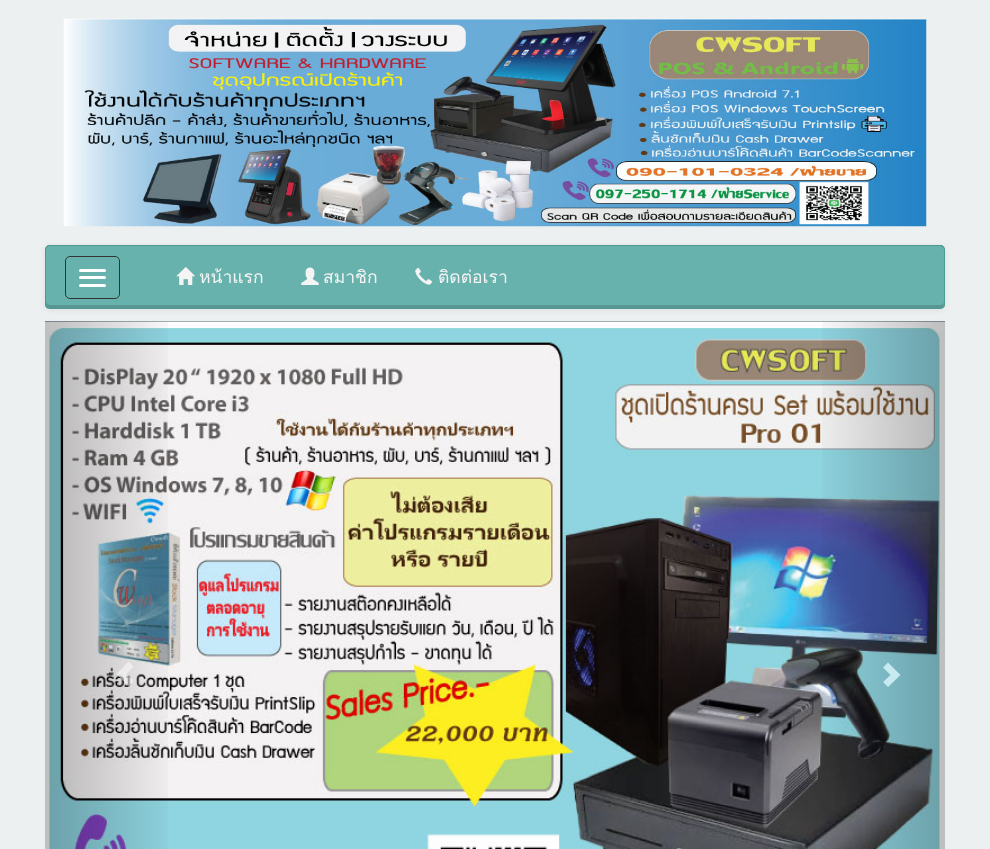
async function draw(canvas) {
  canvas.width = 990;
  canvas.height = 849;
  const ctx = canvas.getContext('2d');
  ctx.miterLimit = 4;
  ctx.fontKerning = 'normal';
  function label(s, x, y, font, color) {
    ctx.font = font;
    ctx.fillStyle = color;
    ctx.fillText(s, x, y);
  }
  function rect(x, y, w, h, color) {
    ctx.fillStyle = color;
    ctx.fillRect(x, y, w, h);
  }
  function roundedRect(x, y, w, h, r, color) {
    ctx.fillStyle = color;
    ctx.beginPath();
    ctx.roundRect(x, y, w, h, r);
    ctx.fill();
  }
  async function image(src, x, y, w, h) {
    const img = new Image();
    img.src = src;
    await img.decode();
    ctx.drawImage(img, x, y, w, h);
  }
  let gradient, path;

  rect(0, 0, 990, 849, '#ecf0f1');
  await image('assets/img1.png', 63, 18, 864, 209);
  ctx.fillStyle = '#00000012';
  ctx.filter = 'blur(3px)';
  ctx.beginPath();
  ctx.roundRect(45, 246, 900, 64, 5);
  ctx.fill();
  ctx.filter = 'none';
  roundedRect(45, 245, 900, 64, 5, '#67b2ad');
  ctx.fillStyle = '#00000026';
  path = new Path2D('M46 302C46 304 46 309 50 309H941L943 307L944 302C943 304 942 305 940 305H50C48 305 47 304 46 302Z');
  ctx.fill(path);
  ctx.fillStyle = '#4d9994';
  path = new Path2D('M50 245H940C943 245 945 247 945 250V304C945 307 943 309 940 309H50C47 309 45 307 45 304V250C45 247 47 245 50 245ZM50 246H940C942 246 944 248 944 250V304C944 307 942 309 940 309H50C48 309 46 307 46 304V250C46 248 48 246 50 246Z');
  ctx.fill(path, 'evenodd');
  ctx.beginPath();
  ctx.roundRect(65.5, 256.5, 54, 42, 4.5);
  ctx.strokeStyle = '#333';
  ctx.stroke();
  roundedRect(79, 269, 27, 3, 1.5, '#fff');
  roundedRect(79, 276, 27, 3, 1.5, '#fff');
  roundedRect(79, 284, 27, 3, 1.5, '#fff');
  await image('assets/img2.png', 176, 267, 20, 18);
  label('หน้าแรก', 199, 283, '17.5px Loma', '#f4f4f4');
  await image('assets/img3.png', 301, 267, 18, 18);
  label('สมาชิก', 323, 283, '17.5px Loma', '#f4f4f4');
  label('ติดต่อเรา', 438, 283, '17.5px Loma', '#f4f4f4');
  await image('assets/img4.png', 415, 267, 18, 18);
  rect(45, 321, 900, 1, '#2f4357');
  await image('assets/img5.png', 45, 321, 900, 528);
  gradient = ctx.createLinearGradient(45, 659, 180, 659);
  gradient.addColorStop(0, '#00000040');
  gradient.addColorStop(1, '#00000000');
  ctx.fillStyle = gradient;
  ctx.fillRect(45, 321, 123, 528);
  ctx.fillStyle = '#ffffff80';
  path = new Path2D('M128.5 686L133.5 681L126.5 674L133.5 666.5L128.5 661.5L116.5 674Z');
  ctx.fill(path);
  gradient = ctx.createLinearGradient(810, 659, 945, 659);
  gradient.addColorStop(0, '#00000000');
  gradient.addColorStop(1, '#00000040');
  ctx.fillStyle = gradient;
  ctx.fillRect(822, 321, 123, 528);
  ctx.fillStyle = '#c7eaf0';
  path = new Path2D('M888 687L883 682L890.5 675L883 667.5L888 662.5L900.5 675Z');
  ctx.fill(path);
}

draw(document.querySelector('canvas'));
